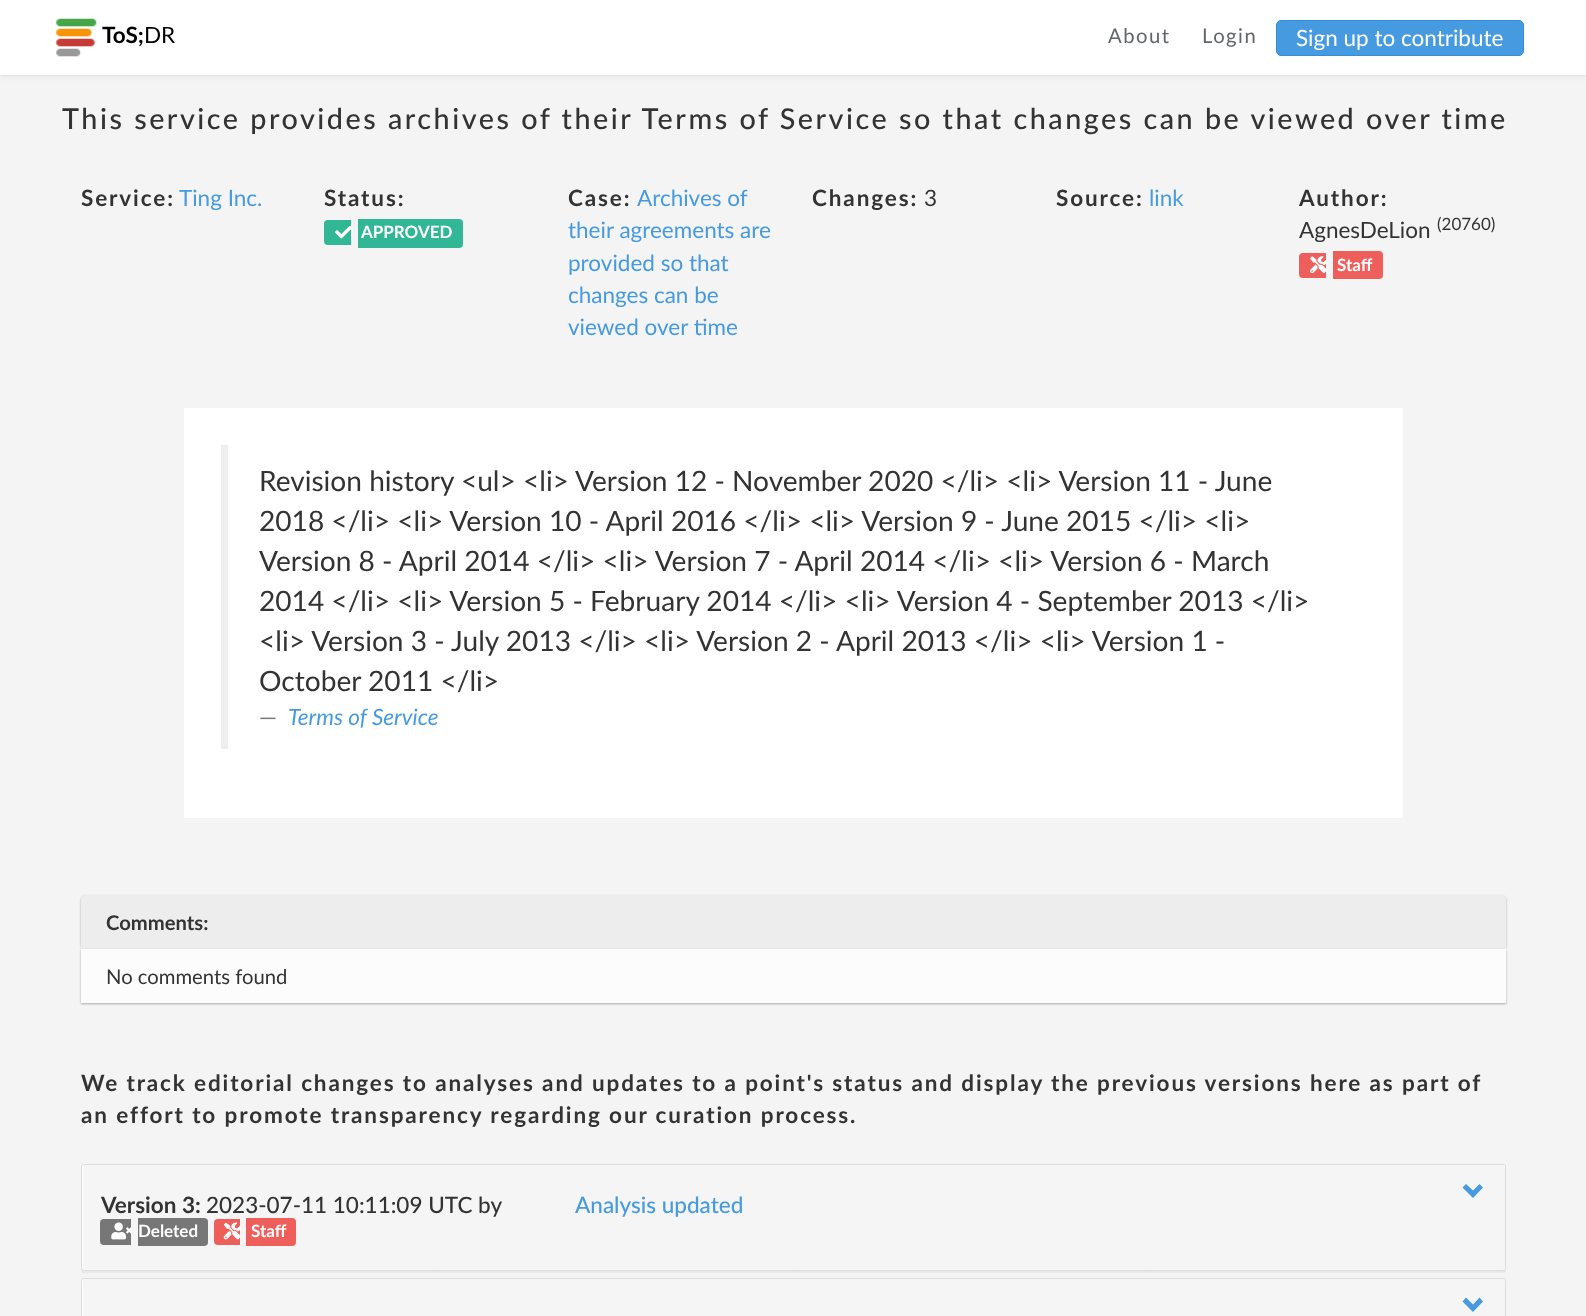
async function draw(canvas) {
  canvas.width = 1586;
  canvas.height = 1316;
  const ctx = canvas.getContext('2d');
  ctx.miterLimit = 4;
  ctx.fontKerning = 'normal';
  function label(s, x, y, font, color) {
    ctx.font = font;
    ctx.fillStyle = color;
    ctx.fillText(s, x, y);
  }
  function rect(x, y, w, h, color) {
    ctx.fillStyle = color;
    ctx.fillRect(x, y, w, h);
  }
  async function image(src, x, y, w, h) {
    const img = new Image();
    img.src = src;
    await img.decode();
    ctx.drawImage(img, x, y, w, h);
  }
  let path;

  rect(0, 0, 1586, 1316, '#f4f4f4');
  rect(0, 75, 1586, 1, '#ededed');
  ctx.fillStyle = '#00000012';
  ctx.filter = 'blur(3px)';
  ctx.beginPath();
  ctx.rect(0, 1, 1586, 75);
  ctx.fill();
  ctx.filter = 'none';
  rect(0, 0, 1586, 75, '#fff');
  await image('assets/img1.png', 56, 18, 41, 39);
  label('ToS;', 102, 43, 'bold 22.5px Lato', '#000');
  label('DR', 144, 43, '22.5px Lato', '#000');
  ctx.letterSpacing = '1.5px';
  label('About', 1108, 43, '20.25px Lato', '#616668');
  label('Login', 1202, 43, '20.25px Lato', '#616668');
  ctx.fillStyle = '#469ae0';
  ctx.beginPath();
  ctx.roundRect(1276.5, 20.5, 247, 35, 4.5);
  ctx.fill();
  ctx.strokeStyle = '#308edc';
  ctx.stroke();
  ctx.letterSpacing = '0px';
  label('Sign up to contribute', 1296, 46, '22.5px Lato', '#fff');
  ctx.letterSpacing = '2.5px';
  label('This service provides archives of their Terms of Service so that changes can be viewed over time', 62, 129, '500 28.75px Lato', '#333');
  ctx.letterSpacing = '1.88px';
  label('Service:', 81, 206, 'bold 22.5px Lato', '#333');
  ctx.letterSpacing = '0px';
  label('Ting Inc.', 179, 206, '22.5px Lato', '#469ae0');
  ctx.letterSpacing = '1.88px';
  label('Status:', 324, 206, 'bold 22.5px Lato', '#333');
  ctx.fillStyle = '#32b796';
  ctx.beginPath();
  ctx.roundRect(324, 220, 27, 25, [4, 0, 0, 4]);
  ctx.fill();
  ctx.beginPath();
  ctx.roundRect(358, 219, 105, 29, [0, 4, 4, 0]);
  ctx.fill();
  await image('assets/img2.png', 335, 225, 17, 14);
  ctx.letterSpacing = '0px';
  label('APPROVED', 361, 238, 'bold 17px Lato', '#fff');
  ctx.letterSpacing = '1.88px';
  label('Case:', 568, 206, 'bold 22.5px Lato', '#333');
  ctx.letterSpacing = '0px';
  label('Archives of', 637, 206, '22.5px Lato', '#469ae0');
  label('their agreements are', 568, 238, '22.5px Lato', '#469ae0');
  label('provided so that', 568, 271, '22.5px Lato', '#469ae0');
  label('changes can be', 568, 303, '22.5px Lato', '#469ae0');
  label('viewed over time', 568, 335, '22.5px Lato', '#469ae0');
  ctx.letterSpacing = '1.88px';
  label('Changes:', 812, 206, 'bold 22.5px Lato', '#333');
  ctx.letterSpacing = '0px';
  label('3', 924, 206, '22.5px Lato', '#333');
  ctx.letterSpacing = '1.88px';
  label('Source:', 1056, 206, 'bold 22.5px Lato', '#333');
  ctx.letterSpacing = '0px';
  label('link', 1149, 206, '22.5px Lato', '#469ae0');
  ctx.letterSpacing = '1.88px';
  label('Author:', 1299, 206, 'bold 22.5px Lato', '#333');
  ctx.letterSpacing = '0px';
  label('AgnesDeLion', 1299, 238, '22.5px Lato', '#333');
  label('(20760)', 1437, 230, '17px Lato', '#333');
  ctx.fillStyle = '#ee5f5b';
  ctx.beginPath();
  ctx.roundRect(1299, 253, 27, 25, [4, 0, 0, 4]);
  ctx.fill();
  ctx.beginPath();
  ctx.roundRect(1333, 251, 50, 28, [0, 4, 4, 0]);
  ctx.fill();
  await image('assets/img3.png', 1310, 256, 17, 18);
  label('Staff', 1337, 271, 'bold 17px Lato', '#fff');
  rect(184, 408, 1219, 410, '#fff');
  rect(221, 445, 7, 304, '#eee');
  label('Revision history <ul> <li> Version 12 - November 2020 <\/li> <li> Version 11 - June', 259, 491, '28.1px Lato', '#333');
  label('2018 <\/li> <li> Version 10 - April 2016 <\/li> <li> Version 9 - June 2015 <\/li> <li>', 259, 531, '28.1px Lato', '#333');
  label('Version 8 - April 2014 <\/li> <li> Version 7 - April 2014 <\/li> <li> Version 6 - March', 259, 571, '28.1px Lato', '#333');
  label('2014 <\/li> <li> Version 5 - February 2014 <\/li> <li> Version 4 - September 2013 <\/li>', 259, 611, '28.1px Lato', '#333');
  label('<li> Version 3 - July 2013 <\/li> <li> Version 2 - April 2013 <\/li> <li> Version 1 -', 259, 651, '28.1px Lato', '#333');
  label('October 2011 <\/li>', 259, 691, '28.1px Lato', '#333');
  label('—', 259, 725, '22.5px Lato', '#777');
  label('Terms of Service', 288, 725, 'italic 22.5px Lato', '#469ae0');
  ctx.fillStyle = '#0000004d';
  ctx.filter = 'blur(1px)';
  ctx.beginPath();
  ctx.roundRect(81, 896, 1425, 54, 5);
  ctx.fill();
  ctx.filter = 'none';
  ctx.fillStyle = '#ededed';
  ctx.beginPath();
  ctx.roundRect(81, 895, 1425, 54, [5, 5, 0, 0]);
  ctx.fill();
  label('Comments:', 106, 930, 'bold 20.25px Lato', '#333');
  ctx.fillStyle = '#0000004d';
  ctx.filter = 'blur(1px)';
  ctx.beginPath();
  ctx.rect(81, 950, 1425, 54);
  ctx.fill();
  ctx.filter = 'none';
  rect(81, 949, 1425, 54, '#fcfcfc');
  label('No comments found', 106, 984, '20.25px Lato', '#333');
  ctx.letterSpacing = '1.88px';
  label('We track editorial changes to analyses and updates to a point\'s status and display the previous versions here as part of', 81, 1091, 'bold 22.5px Lato', '#333');
  label('an effort to promote transparency regarding our curation process.', 81, 1123, 'bold 22.5px Lato', '#333');
  ctx.fillStyle = '#0000000d';
  ctx.filter = 'blur(0.5px)';
  ctx.beginPath();
  ctx.roundRect(81, 1165, 1425, 108, 2.5);
  ctx.fill();
  ctx.filter = 'none';
  ctx.fillStyle = '#fff';
  ctx.beginPath();
  ctx.roundRect(81.5, 1164.5, 1424, 106, 2);
  ctx.fill();
  ctx.strokeStyle = '#ddd';
  ctx.stroke();
  ctx.fillStyle = '#f5f5f5';
  ctx.beginPath();
  ctx.roundRect(83, 1165, 1422, 105, [1, 1, 0, 0]);
  ctx.fill();
  ctx.fillStyle = '#469ae0';
  path = new Path2D('M1483 1187.5L1473 1198L1462.5 1187.5L1466 1184L1473 1190.5L1479.5 1184Z');
  ctx.fill(path);
  ctx.letterSpacing = '0px';
  label('Version 3:', 101, 1213, 'bold 22.5px Lato', '#333');
  label('2023-07-11 10:11:09 UTC by', 206, 1213, '500 22.5px Lato', '#333');
  ctx.fillStyle = '#777';
  ctx.beginPath();
  ctx.roundRect(100, 1219, 31, 26, [4, 0, 0, 4]);
  ctx.fill();
  ctx.beginPath();
  ctx.roundRect(138, 1218, 70, 28, [0, 4, 4, 0]);
  ctx.fill();
  await image('assets/img4.png', 111, 1222, 21, 18);
  label('Deleted', 138, 1237, 'bold 17px Lato', '#fff');
  ctx.fillStyle = '#ee5f5b';
  ctx.beginPath();
  ctx.roundRect(214, 1219, 26, 26, [4, 0, 0, 4]);
  ctx.fill();
  ctx.beginPath();
  ctx.roundRect(246, 1218, 50, 28, [0, 4, 4, 0]);
  ctx.fill();
  await image('assets/img5.png', 223, 1222, 18, 18);
  label('Staff', 251, 1237, 'bold 17px Lato', '#fff');
  label('Analysis updated', 575, 1213, '500 22.5px Lato', '#469ae0');
  ctx.fillStyle = '#fff';
  ctx.beginPath();
  ctx.roundRect(81.5, 1278.5, 1424, 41, 2);
  ctx.fill();
  ctx.stroke();
  ctx.fillStyle = '#f5f5f5';
  path = new Path2D('M84 1279H1504C1504.5 1279 1505 1279.5 1505 1280V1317H83V1280C83 1279.5 83.5 1279 84 1279Z');
  ctx.fill(path);
  ctx.fillStyle = '#469ae0';
  path = new Path2D('M1483 1301.5L1473 1312L1462.5 1301.5L1466 1297.5L1473 1304.5L1479.5 1297.5Z');
  ctx.fill(path);
}

draw(document.querySelector('canvas'));
